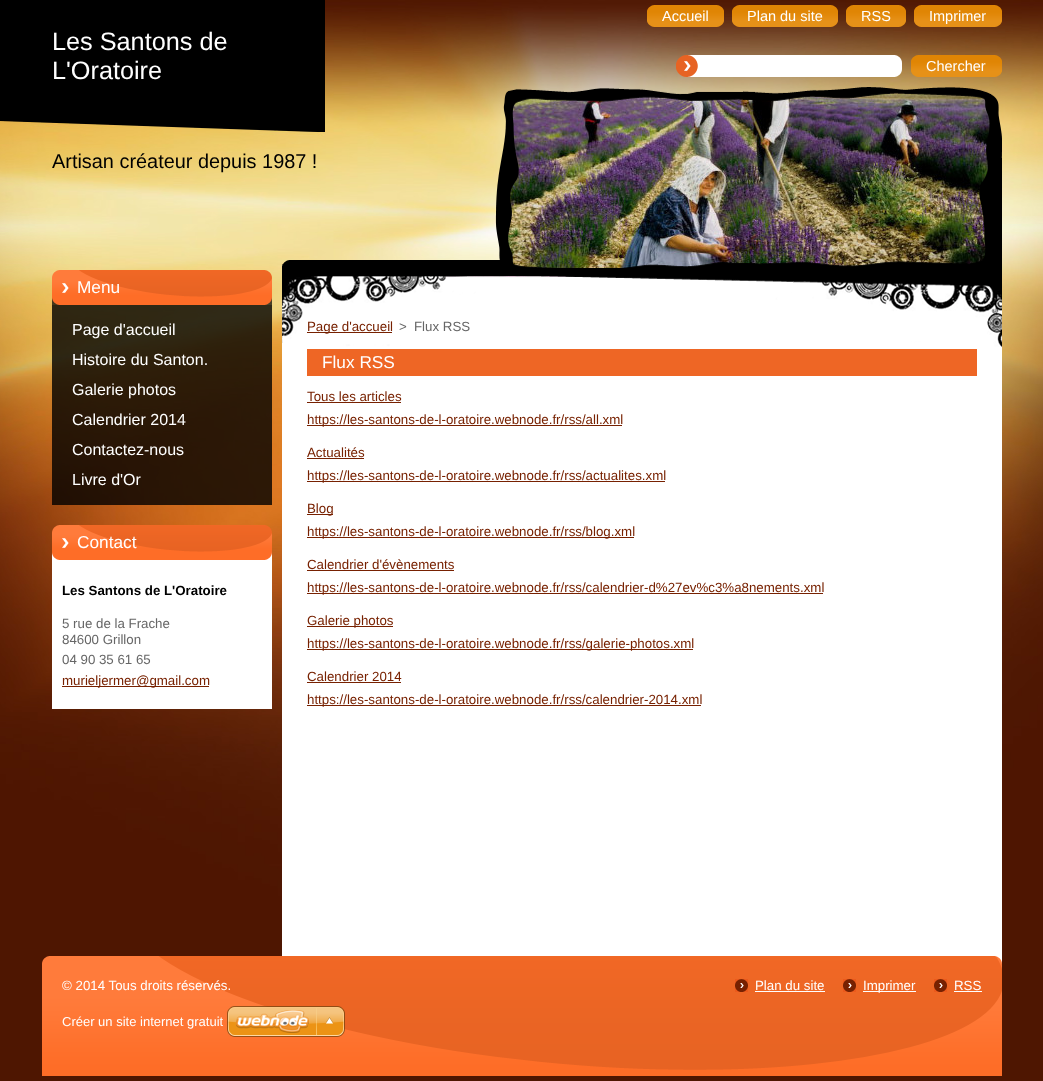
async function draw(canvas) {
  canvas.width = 1043;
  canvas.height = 1081;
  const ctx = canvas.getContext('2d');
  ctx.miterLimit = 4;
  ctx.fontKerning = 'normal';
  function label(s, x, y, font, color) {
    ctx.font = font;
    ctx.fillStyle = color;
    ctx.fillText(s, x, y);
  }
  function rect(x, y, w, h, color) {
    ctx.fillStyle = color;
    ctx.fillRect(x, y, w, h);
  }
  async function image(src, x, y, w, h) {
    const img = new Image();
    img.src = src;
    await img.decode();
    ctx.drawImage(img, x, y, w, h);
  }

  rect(0, 0, 1043, 1081, '#4e1601');
  await image('assets/img1.png', 0, 0, 1043, 920);
  await image('assets/img2.png', 0, 0, 325, 132);
  rect(282, 265, 720, 691, '#fff');
  await image('assets/img3.png', 647, 5, 15, 22);
  await image('assets/img4.png', 662, 5, 47, 22);
  label('Accueil', 662, 21, '14.5px Liberation Sans', '#fff');
  await image('assets/img5.png', 709, 5, 15, 22);
  await image('assets/img6.png', 732, 5, 15, 22);
  await image('assets/img7.png', 747, 5, 76, 22);
  label('Plan du site', 747, 21, '14.5px Liberation Sans', '#fff');
  await image('assets/img8.png', 823, 5, 15, 22);
  await image('assets/img9.png', 846, 5, 15, 22);
  await image('assets/img10.png', 861, 5, 30, 22);
  label('RSS', 861, 21, '14.5px Liberation Sans', '#fff');
  await image('assets/img11.png', 891, 5, 15, 22);
  await image('assets/img12.png', 914, 5, 15, 22);
  await image('assets/img13.png', 929, 5, 58, 22);
  label('Imprimer', 929, 21, '14.5px Liberation Sans', '#fff');
  await image('assets/img14.png', 987, 5, 15, 22);
  label('Les Santons de', 52, 50, '25.25px Liberation Sans', '#fff');
  label('L\'Oratoire', 52, 79, '25.25px Liberation Sans', '#fff');
  await image('assets/img15.png', 676, 55, 226, 22);
  await image('assets/img16.png', 911, 55, 15, 22);
  await image('assets/img17.png', 926, 55, 61, 22);
  label('Chercher', 926, 71, '14.5px Liberation Sans', '#fff');
  await image('assets/img18.png', 987, 55, 15, 22);
  await image('assets/img19.png', 282, 260, 720, 10);
  label('Artisan créateur depuis 1987 !', 52, 168, '19.9px Liberation Sans', '#000');
  await image('assets/img21.png', 508, 94, 483, 174);
  await image('assets/img20.png', 495, 87, 507, 181);
  await image('assets/img22.png', 52, 270, 220, 35);
  label('Menu', 77, 293, '17.25px Liberation Sans', '#fff');
  rect(52, 305, 220, 200, '#000000cc');
  label('Page d\'accueil', 72, 335, '16px Liberation Sans', '#fff');
  label('Histoire du Santon.', 72, 365, '16px Liberation Sans', '#fff');
  label('Galerie photos', 72, 395, '16px Liberation Sans', '#fff');
  label('Calendrier 2014', 72, 425, '16px Liberation Sans', '#fff');
  label('Contactez-nous', 72, 455, '16px Liberation Sans', '#fff');
  label('Livre d\'Or', 72, 485, '16px Liberation Sans', '#fff');
  rect(52, 560, 220, 149, '#fff');
  await image('assets/img23.png', 52, 525, 220, 35);
  label('Contact', 77, 548, '17.25px Liberation Sans', '#fff');
  label('Les Santons de L\'Oratoire', 62, 595, 'bold 13.3px Liberation Sans', '#000');
  label('5 rue de la Frache', 62, 628, '13.3px Liberation Sans', '#666');
  label('84600 Grillon', 62, 644, '13.3px Liberation Sans', '#666');
  label('04 90 35 61 65', 62, 664, '13.3px Liberation Sans', '#666');
  rect(62, 686, 147, 1, '#772101');
  label('murieljermer@gmail.com', 62, 685, '13.3px Liberation Sans', '#772101');
  await image('assets/img24.png', 282, 270, 720, 77);
  rect(307, 332, 85, 1, '#772101');
  label('Page d\'accueil', 307, 331, '13.3px Liberation Sans', '#772101');
  label('>', 399, 331, '13.3px Liberation Sans', '#666');
  label('Flux RSS', 414, 331, '13.3px Liberation Sans', '#666');
  rect(307, 349, 670, 27, '#ee6625');
  label('Flux RSS', 322, 368, '17.25px Liberation Sans', '#fff');
  label('Tous les articles', 307, 401, '13.3px Liberation Sans', '#772101');
  rect(307, 402, 94, 1, '#772101');
  rect(307, 425, 315, 1, '#772101');
  label('https://les-santons-de-l-oratoire.webnode.fr/rss/all.xml', 307, 424, '13.3px Liberation Sans', '#772101');
  label('Actualités', 307, 457, '13.3px Liberation Sans', '#772101');
  rect(307, 458, 57, 1, '#772101');
  rect(307, 481, 358, 1, '#772101');
  label('https://les-santons-de-l-oratoire.webnode.fr/rss/actualites.xml', 307, 480, '13.3px Liberation Sans', '#772101');
  rect(307, 514, 26, 1, '#772101');
  label('Blog', 307, 513, '13.3px Liberation Sans', '#772101');
  rect(307, 537, 327, 1, '#772101');
  label('https://les-santons-de-l-oratoire.webnode.fr/rss/blog.xml', 307, 536, '13.3px Liberation Sans', '#772101');
  label('Calendrier d\'évènements', 307, 569, '13.3px Liberation Sans', '#772101');
  rect(307, 570, 147, 1, '#772101');
  rect(307, 593, 516, 1, '#772101');
  label('https://les-santons-de-l-oratoire.webnode.fr/rss/calendrier-d%27ev%c3%a8nements.xml', 307, 592, '13.3px Liberation Sans', '#772101');
  rect(307, 626, 86, 1, '#772101');
  label('Galerie photos', 307, 625, '13.3px Liberation Sans', '#772101');
  rect(307, 649, 386, 1, '#772101');
  label('https://les-santons-de-l-oratoire.webnode.fr/rss/galerie-photos.xml', 307, 648, '13.3px Liberation Sans', '#772101');
  label('Calendrier 2014', 307, 681, '13.3px Liberation Sans', '#772101');
  rect(307, 682, 94, 1, '#772101');
  rect(307, 705, 394, 1, '#772101');
  label('https://les-santons-de-l-oratoire.webnode.fr/rss/calendrier-2014.xml', 307, 704, '13.3px Liberation Sans', '#772101');
  await image('assets/img25.png', 42, 956, 960, 120);
  ctx.save();
  ctx.beginPath();
  ctx.rect(62, 976, 580, 20);
  ctx.clip();
  label('© 2014 Tous droits réservés.', 62, 990, '13.3px Liberation Sans', '#fff');
  ctx.restore();
  await image('assets/img26.png', 735, 979, 13, 13);
  label('Plan du site', 755, 990, '13.3px Liberation Sans', '#fff');
  rect(755, 991, 70, 1, '#fff');
  await image('assets/img26.png', 843, 979, 13, 13);
  rect(863, 991, 53, 1, '#fff');
  label('Imprimer', 863, 990, '13.3px Liberation Sans', '#fff');
  await image('assets/img26.png', 934, 979, 13, 13);
  label('RSS', 954, 990, '13.3px Liberation Sans', '#fff');
  rect(954, 991, 28, 1, '#fff');
  label('Créer un site internet gratuit', 62, 1026, '13px Liberation Sans', '#fff');
  await image('assets/img27.png', 227, 1006, 118, 31);
}

draw(document.querySelector('canvas'));
